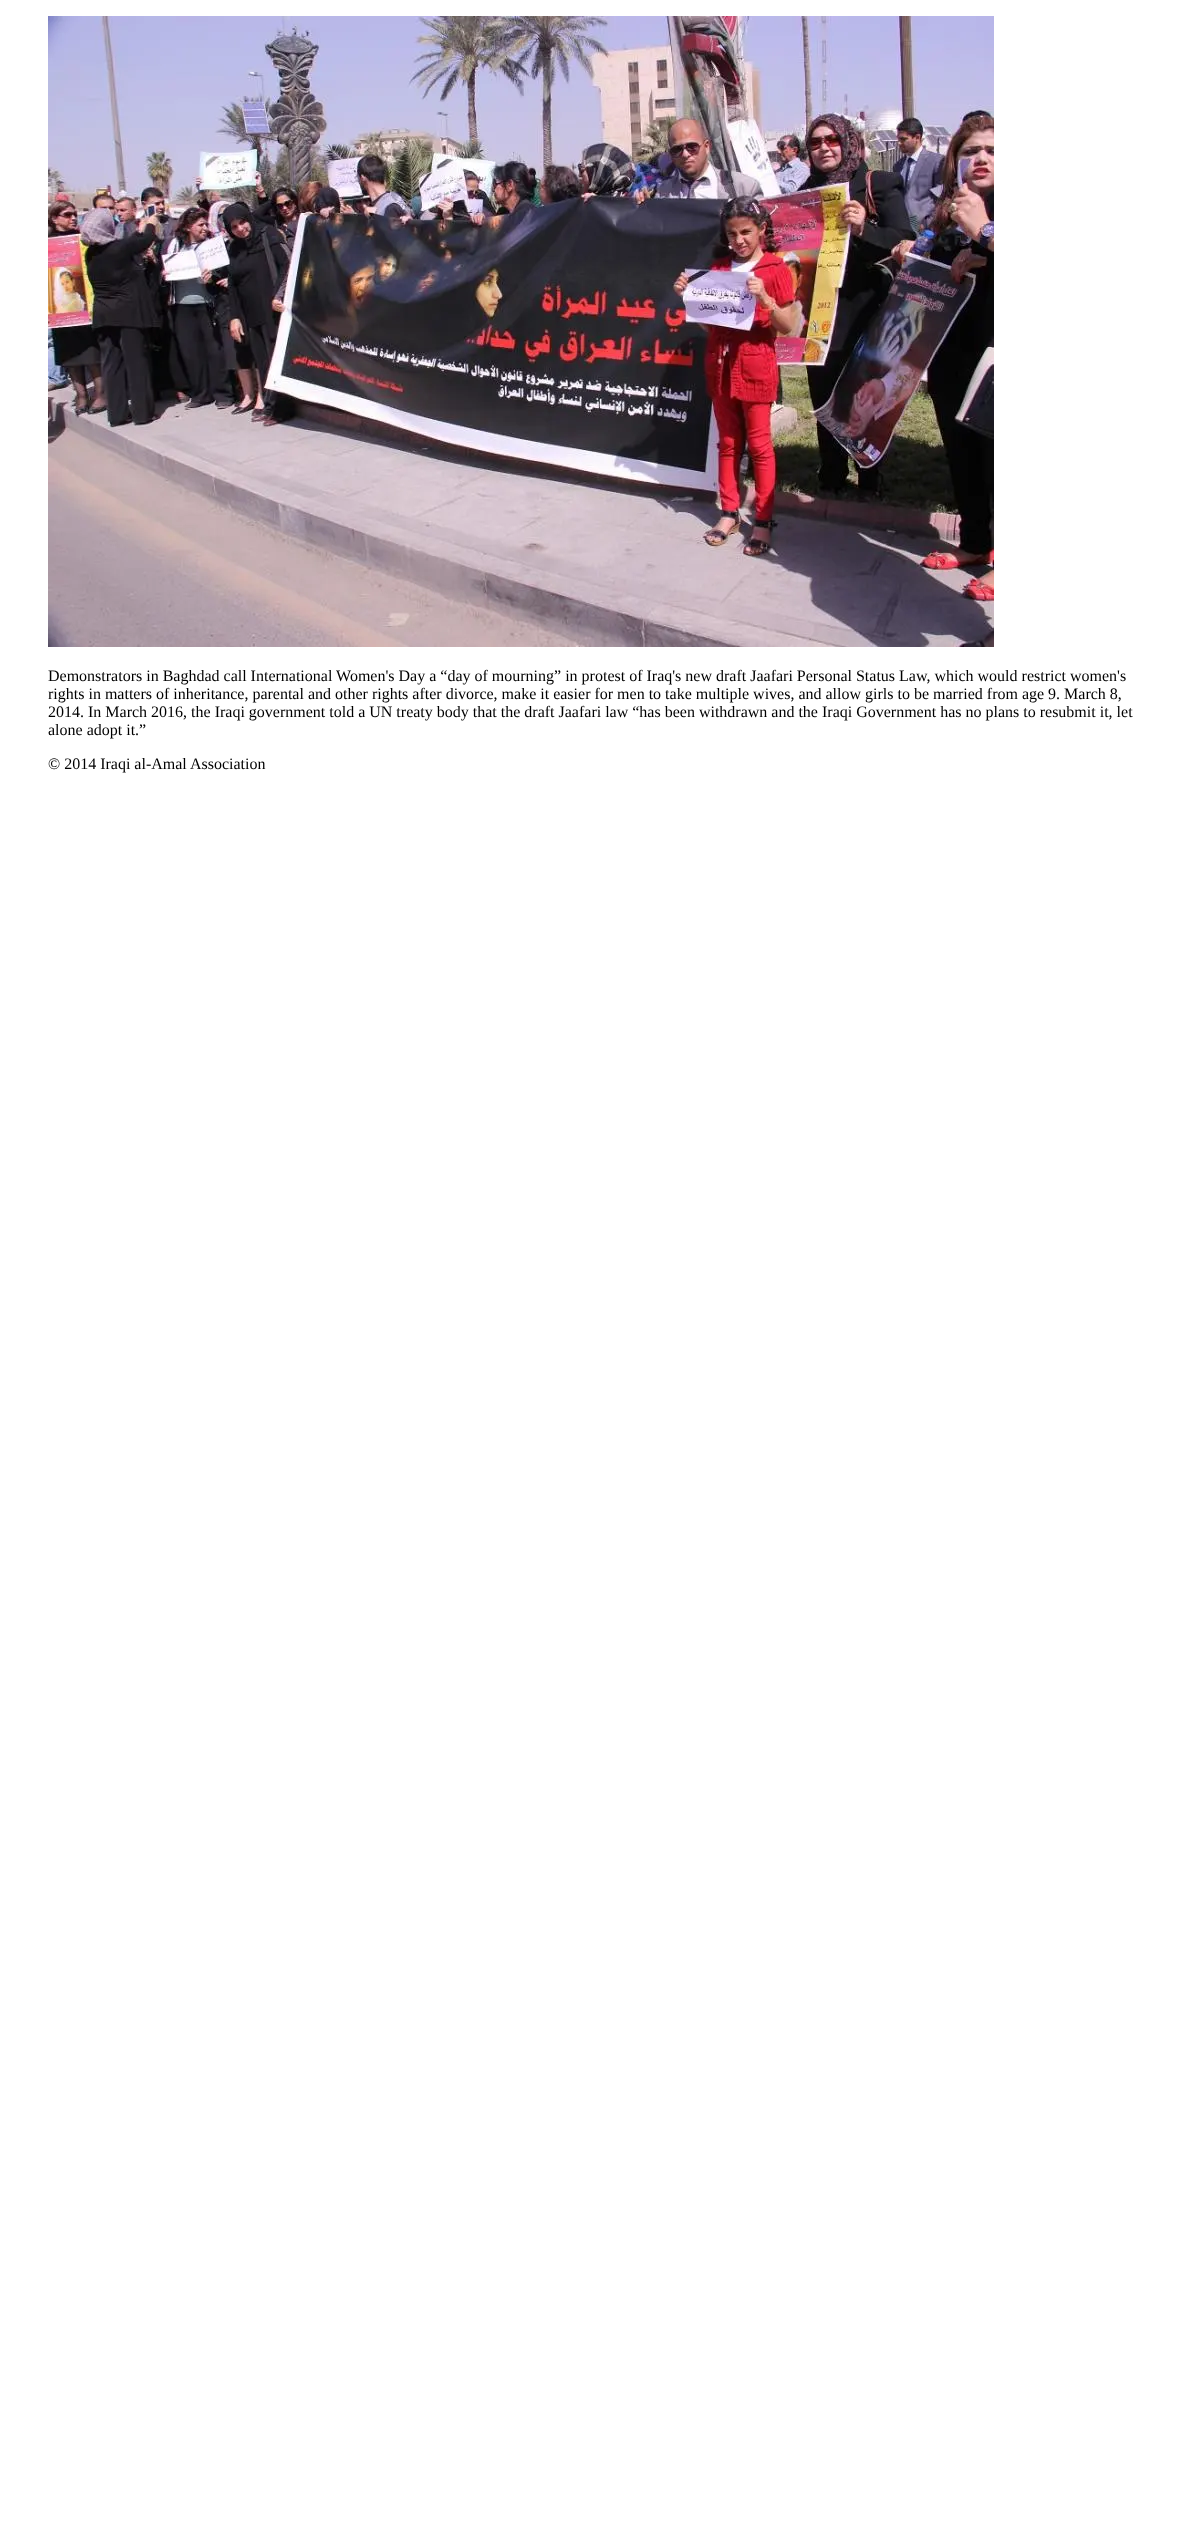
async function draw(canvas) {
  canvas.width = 1189;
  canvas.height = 2541;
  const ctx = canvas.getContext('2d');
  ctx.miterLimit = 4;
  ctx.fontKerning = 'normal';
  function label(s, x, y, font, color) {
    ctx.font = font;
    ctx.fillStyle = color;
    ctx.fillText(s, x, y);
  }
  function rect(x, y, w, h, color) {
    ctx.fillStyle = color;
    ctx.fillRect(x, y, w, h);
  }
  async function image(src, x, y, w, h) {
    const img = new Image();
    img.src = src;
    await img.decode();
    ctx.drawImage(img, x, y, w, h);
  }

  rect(0, 0, 1189, 2541, '#fff');
  await image('assets/img1.png', 48, 16, 946, 631);
  label('Demonstrators in Baghdad call International Women\'s Day a “day of mourning” in protest of Iraq\'s new draft Jaafari Personal Status Law, which would restrict women\'s', 48, 681, '16px Liberation Serif', '#000');
  label('rights in matters of inheritance, parental and other rights after divorce, make it easier for men to take multiple wives, and allow girls to be married from age 9. March 8,', 48, 699, '16px Liberation Serif', '#000');
  label('2014. In March 2016, the Iraqi government told a UN treaty body that the draft Jaafari law “has been withdrawn and the Iraqi Government has no plans to resubmit it, let', 48, 717, '16px Liberation Serif', '#000');
  label('alone adopt it.”', 48, 735, '16px Liberation Serif', '#000');
  label('© 2014 Iraqi al-Amal Association', 48, 769, '16px Liberation Serif', '#000');
}

draw(document.querySelector('canvas'));
